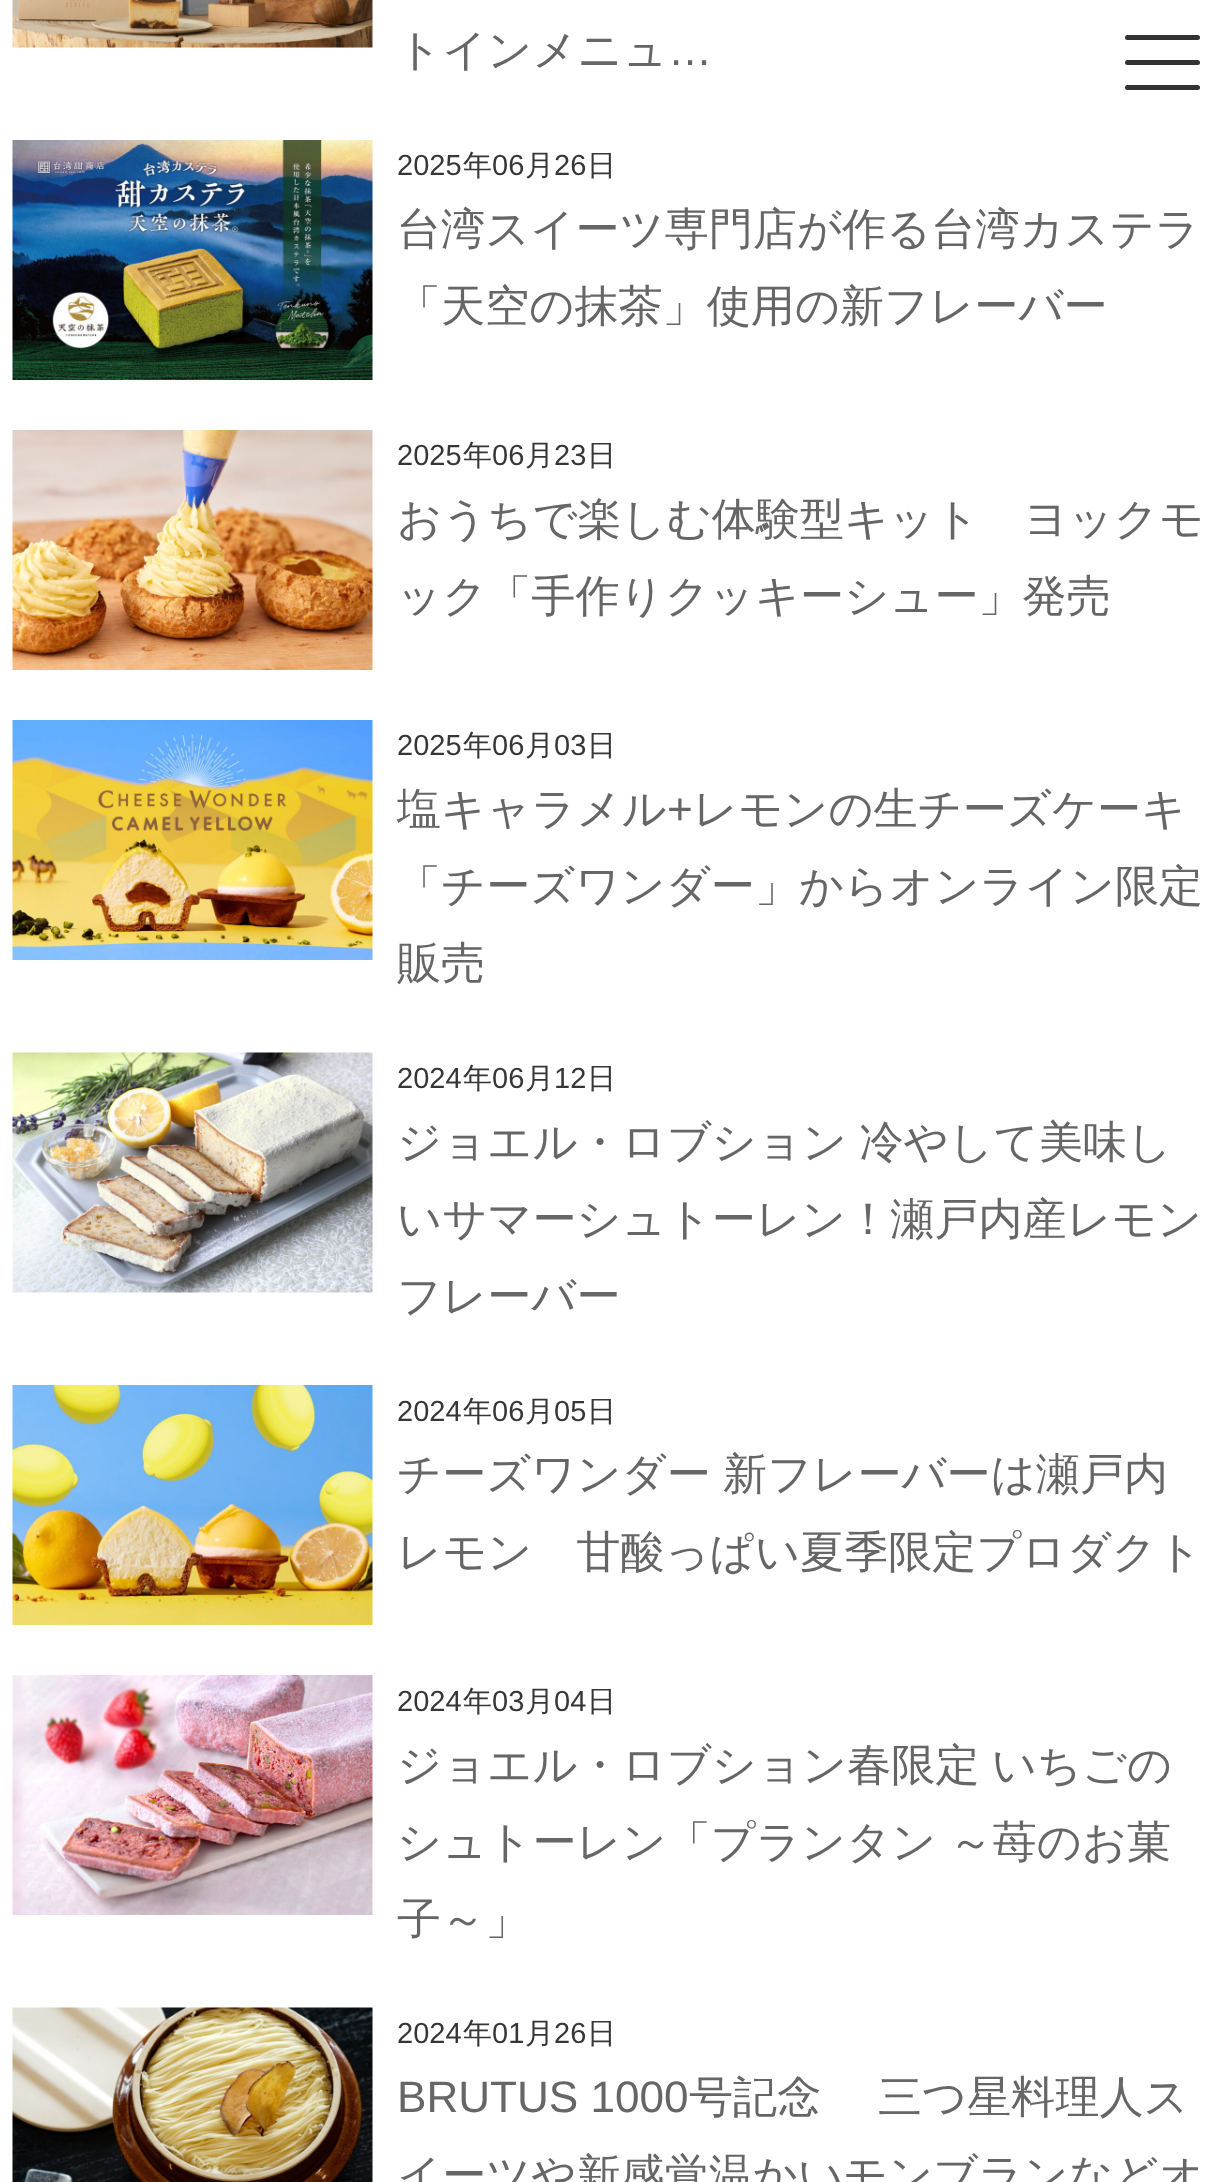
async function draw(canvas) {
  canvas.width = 1224;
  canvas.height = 2182;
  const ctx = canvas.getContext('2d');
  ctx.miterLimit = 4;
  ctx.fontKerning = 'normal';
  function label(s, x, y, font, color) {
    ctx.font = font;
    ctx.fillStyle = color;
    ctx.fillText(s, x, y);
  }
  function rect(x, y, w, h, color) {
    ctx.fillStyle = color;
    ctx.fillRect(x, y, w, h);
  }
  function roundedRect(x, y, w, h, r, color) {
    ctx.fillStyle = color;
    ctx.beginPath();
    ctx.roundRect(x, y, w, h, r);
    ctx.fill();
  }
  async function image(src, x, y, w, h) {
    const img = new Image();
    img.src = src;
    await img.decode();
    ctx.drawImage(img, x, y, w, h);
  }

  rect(0, 0, 1224, 2182, '#fff');
  await image('assets/img1.png', 12, 0, 361, 48);
  label('トインメニュ', 397, 65, '500 44.1px WenQuanYi Zen Hei', '#666');
  label('…', 668, 65, '44.1px Liberation Sans', '#666');
  await image('assets/img2.png', 12, 140, 361, 240);
  label('2025', 397, 175, '29px Liberation Sans', '#363636');
  label('年', 463, 175, '500 29px WenQuanYi Zen Hei', '#363636');
  label('06', 492, 175, '29px Liberation Sans', '#363636');
  label('月', 525, 175, '500 29px WenQuanYi Zen Hei', '#363636');
  label('26', 554, 175, '29px Liberation Sans', '#363636');
  label('日', 587, 175, '500 29px WenQuanYi Zen Hei', '#363636');
  label('台湾スイーツ専門店が作る台湾カステラ', 397, 244, '500 44.1px WenQuanYi Zen Hei', '#666');
  label('「天空の抹茶」使用の新フレーバー', 397, 321, '500 44.1px WenQuanYi Zen Hei', '#666');
  await image('assets/img3.png', 12, 430, 361, 240);
  label('2025', 397, 465, '29px Liberation Sans', '#363636');
  label('年', 463, 465, '500 29px WenQuanYi Zen Hei', '#363636');
  label('06', 492, 465, '29px Liberation Sans', '#363636');
  label('月', 525, 465, '500 29px WenQuanYi Zen Hei', '#363636');
  label('23', 554, 465, '29px Liberation Sans', '#363636');
  label('日', 587, 465, '500 29px WenQuanYi Zen Hei', '#363636');
  label('おうちで楽しむ体験型キット　ヨックモ', 397, 534, '500 44.1px WenQuanYi Zen Hei', '#666');
  label('ック「手作りクッキーシュー」発売', 397, 611, '500 44.1px WenQuanYi Zen Hei', '#666');
  await image('assets/img4.png', 12, 720, 361, 240);
  label('2025', 397, 755, '29px Liberation Sans', '#363636');
  label('年', 463, 755, '500 29px WenQuanYi Zen Hei', '#363636');
  label('06', 492, 755, '29px Liberation Sans', '#363636');
  label('月', 525, 755, '500 29px WenQuanYi Zen Hei', '#363636');
  label('03', 554, 755, '29px Liberation Sans', '#363636');
  label('日', 587, 755, '500 29px WenQuanYi Zen Hei', '#363636');
  label('塩キャラメル', 397, 824, '500 44.1px WenQuanYi Zen Hei', '#666');
  label('+', 667, 824, '44.1px Liberation Sans', '#666');
  label('レモンの生チーズケーキ', 693, 824, '500 44.1px WenQuanYi Zen Hei', '#666');
  label('「チーズワンダー」からオンライン限定', 397, 901, '500 44.1px WenQuanYi Zen Hei', '#666');
  label('販売', 397, 978, '500 44.1px WenQuanYi Zen Hei', '#666');
  await image('assets/img5.png', 12, 1052, 361, 241);
  label('2024', 397, 1088, '29px Liberation Sans', '#363636');
  label('年', 463, 1088, '500 29px WenQuanYi Zen Hei', '#363636');
  label('06', 492, 1088, '29px Liberation Sans', '#363636');
  label('月', 525, 1088, '500 29px WenQuanYi Zen Hei', '#363636');
  label('12', 554, 1088, '29px Liberation Sans', '#363636');
  label('日', 587, 1088, '500 29px WenQuanYi Zen Hei', '#363636');
  ctx.wordSpacing = '-1px';
  label('ジョエル・ロブション 冷やして美味し', 397, 1157, '500 44.1px WenQuanYi Zen Hei', '#666');
  ctx.wordSpacing = '0px';
  label('いサマーシュトーレン！瀬戸内産レモン', 397, 1234, '500 44.1px WenQuanYi Zen Hei', '#666');
  label('フレーバー', 397, 1311, '500 44.1px WenQuanYi Zen Hei', '#666');
  await image('assets/img6.png', 12, 1385, 361, 240);
  label('2024', 397, 1421, '29px Liberation Sans', '#363636');
  label('年', 463, 1421, '500 29px WenQuanYi Zen Hei', '#363636');
  label('06', 492, 1421, '29px Liberation Sans', '#363636');
  label('月', 525, 1421, '500 29px WenQuanYi Zen Hei', '#363636');
  label('05', 554, 1421, '29px Liberation Sans', '#363636');
  label('日', 587, 1421, '500 29px WenQuanYi Zen Hei', '#363636');
  ctx.wordSpacing = '-1px';
  label('チーズワンダー 新フレーバーは瀬戸内', 397, 1489, '500 44.1px WenQuanYi Zen Hei', '#666');
  ctx.wordSpacing = '0px';
  label('レモン　甘酸っぱい夏季限定プロダクト', 397, 1567, '500 44.1px WenQuanYi Zen Hei', '#666');
  await image('assets/img7.png', 12, 1675, 361, 240);
  label('2024', 397, 1711, '29px Liberation Sans', '#363636');
  label('年', 463, 1711, '500 29px WenQuanYi Zen Hei', '#363636');
  label('03', 492, 1711, '29px Liberation Sans', '#363636');
  label('月', 525, 1711, '500 29px WenQuanYi Zen Hei', '#363636');
  label('04', 554, 1711, '29px Liberation Sans', '#363636');
  label('日', 587, 1711, '500 29px WenQuanYi Zen Hei', '#363636');
  ctx.wordSpacing = '-1px';
  label('ジョエル・ロブション春限定 いちごの', 397, 1780, '500 44.1px WenQuanYi Zen Hei', '#666');
  label('シュトーレン「プランタン ～苺のお菓', 397, 1857, '500 44.1px WenQuanYi Zen Hei', '#666');
  ctx.wordSpacing = '0px';
  label('子～」', 397, 1934, '500 44.1px WenQuanYi Zen Hei', '#666');
  await image('assets/img8.png', 12, 2007, 361, 175);
  label('2024', 397, 2043, '29px Liberation Sans', '#363636');
  label('年', 463, 2043, '500 29px WenQuanYi Zen Hei', '#363636');
  label('01', 492, 2043, '29px Liberation Sans', '#363636');
  label('月', 525, 2043, '500 29px WenQuanYi Zen Hei', '#363636');
  label('26', 554, 2043, '29px Liberation Sans', '#363636');
  label('日', 587, 2043, '500 29px WenQuanYi Zen Hei', '#363636');
  label('BRUTUS 1000', 397, 2112, '44.1px Liberation Sans', '#666');
  label('号記念', 689, 2112, '500 44.1px WenQuanYi Zen Hei', '#666');
  label('三つ星料理人ス', 878, 2112, '500 44.1px WenQuanYi Zen Hei', '#666');
  label('イーツや新感覚温かいモンブランなどオ', 397, 2190, '500 44.1px WenQuanYi Zen Hei', '#666');
  roundedRect(1125, 35, 75, 5, 2.5, '#333');
  roundedRect(1125, 60, 75, 5, 2.5, '#333');
  roundedRect(1125, 85, 75, 5, 2.5, '#333');
}

draw(document.querySelector('canvas'));
